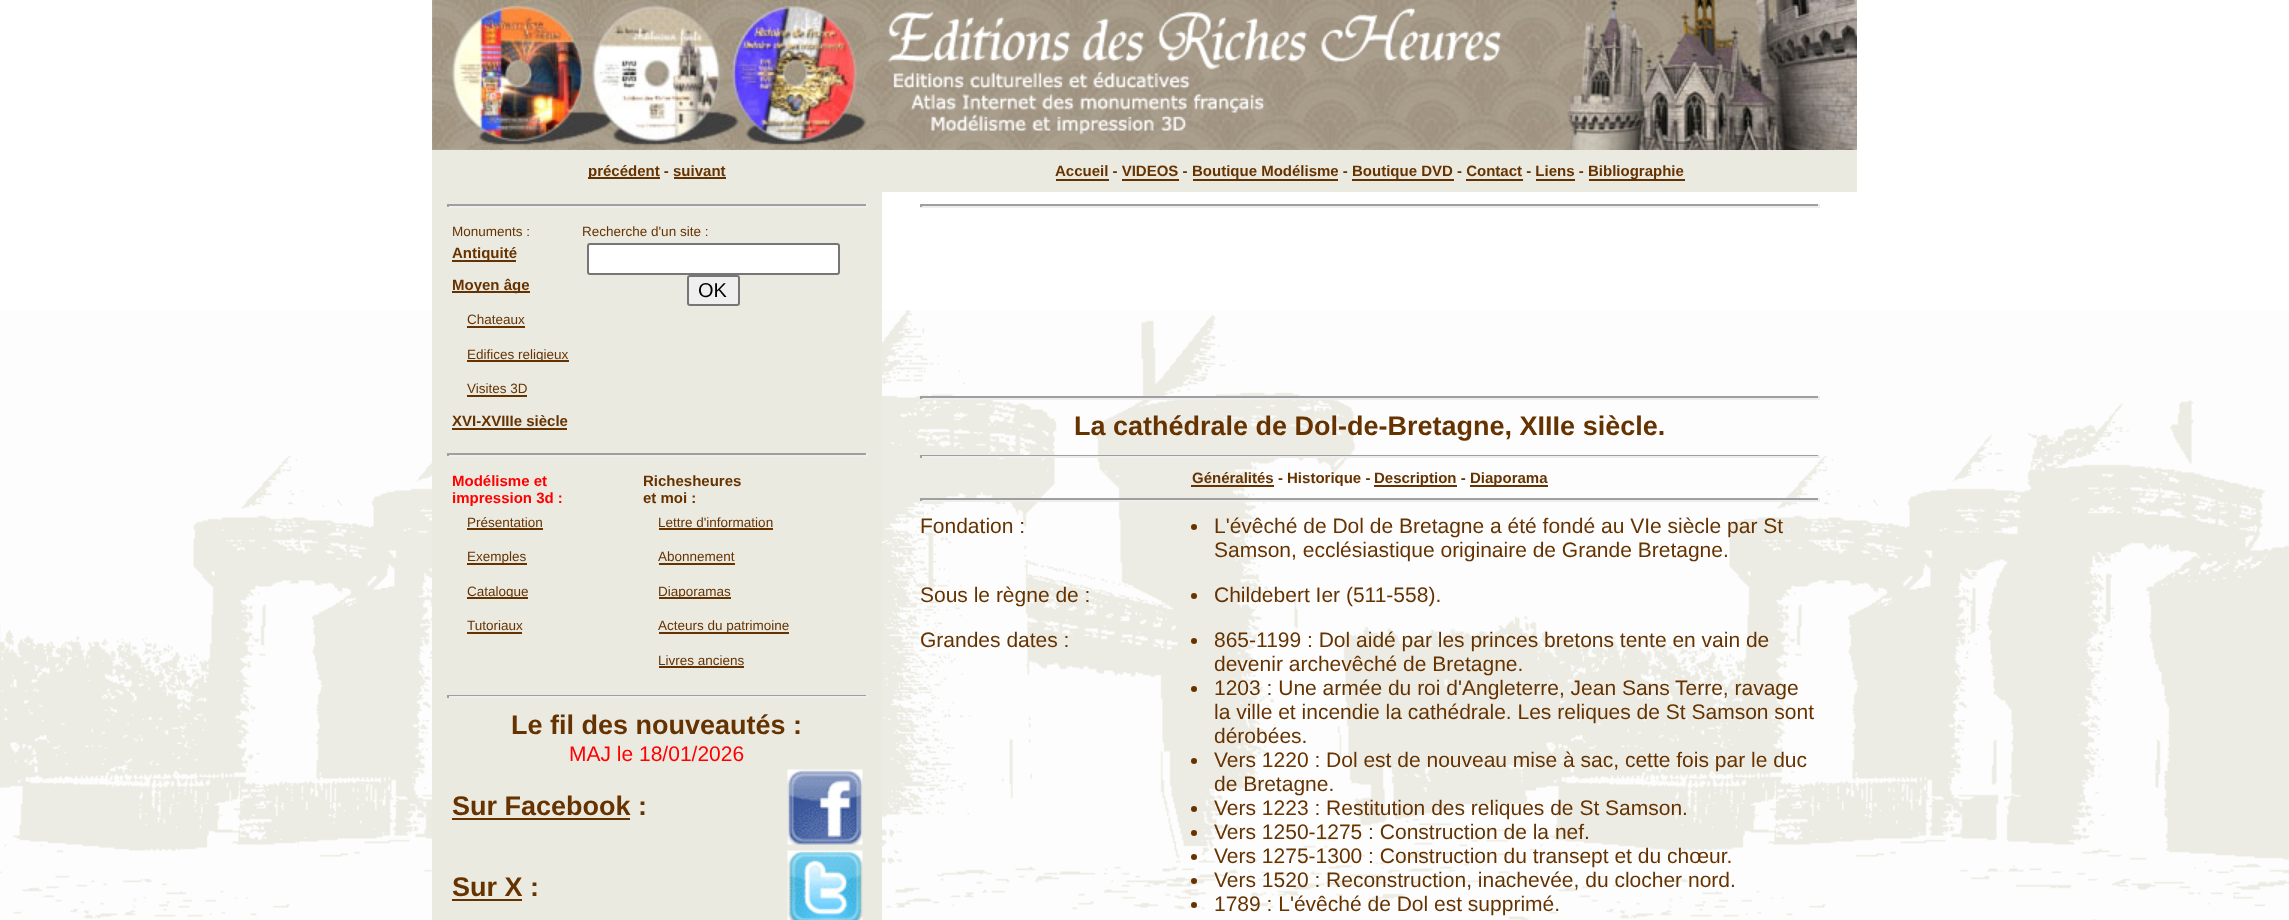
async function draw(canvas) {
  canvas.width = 2289;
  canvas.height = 920;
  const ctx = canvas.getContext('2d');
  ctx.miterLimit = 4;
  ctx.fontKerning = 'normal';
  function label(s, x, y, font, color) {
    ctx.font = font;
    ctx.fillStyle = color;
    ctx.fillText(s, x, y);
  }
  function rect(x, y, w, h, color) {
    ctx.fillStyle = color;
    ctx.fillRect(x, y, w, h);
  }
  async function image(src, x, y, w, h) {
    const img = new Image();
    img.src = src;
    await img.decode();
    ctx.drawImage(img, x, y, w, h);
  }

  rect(0, 0, 2289, 920, '#fff');
  await image('assets/img1.png', 0, 310, 2289, 610);
  await image('assets/img2.png', 432, 0, 450, 150);
  await image('assets/img3.png', 882, 0, 975, 150);
  await image('assets/img4.png', 888, 7, 614, 128);
  rect(432, 150, 1425, 42, '#ebeae1');
  rect(588, 177, 72, 2, '#630');
  label('précédent - suivant', 588, 176, 'bold 15px Liberation Sans', '#630');
  rect(674, 177, 52, 2, '#630');
  label('Accueil - VIDEOS -', 1055, 176, 'bold 15px Liberation Sans', '#630');
  rect(1056, 179, 53, 2, '#630');
  rect(1193, 179, 145, 2, '#630');
  label('Boutique Modélisme -', 1192, 176, 'bold 15px Liberation Sans', '#630');
  rect(1352, 179, 102, 2, '#630');
  label('Boutique DVD - Contact - Liens -', 1352, 176, 'bold 15px Liberation Sans', '#630');
  rect(1589, 179, 96, 2, '#630');
  label('Bibliographie', 1588, 176, 'bold 15px Liberation Sans', '#630');
  rect(1122, 179, 57, 2, '#630');
  rect(1466, 179, 57, 2, '#630');
  rect(1536, 179, 39, 2, '#630');
  rect(432, 192, 450, 728, '#ebeae1');
  rect(447, 204, 420, 2, '#9f9f9f');
  rect(866, 204, 2, 3, '#eee');
  rect(447, 206, 420, 2, '#eee');
  rect(447, 204, 2, 3, '#9f9f9f');
  label('Monuments :', 452, 236, '13.5px Liberation Sans', '#630');
  rect(452, 260, 64, 2, '#630');
  label('Antiquité', 452, 258, 'bold 15px Liberation Sans', '#630');
  rect(452, 291, 78, 2, '#630');
  label('Moyen âge', 452, 290, 'bold 15px Liberation Sans', '#630');
  label('Chateaux', 467, 324, '13.5px Liberation Sans', '#630');
  rect(467, 326, 58, 2, '#630');
  rect(467, 360, 102, 2, '#630');
  label('Edifices religieux', 467, 359, '13.5px Liberation Sans', '#630');
  label('Visites 3D', 467, 393, '13.5px Liberation Sans', '#630');
  rect(467, 395, 60, 2, '#630');
  label('XVI-XVIIIe siècle', 452, 426, 'bold 15px Liberation Sans', '#630');
  rect(452, 428, 115, 2, '#630');
  label('Recherche d\'un site :', 582, 236, '13.5px Liberation Sans', '#630');
  ctx.fillStyle = '#fff';
  ctx.beginPath();
  ctx.roundRect(588, 244, 251, 30, 2);
  ctx.fill();
  ctx.strokeStyle = '#767676';
  ctx.lineWidth = 2;
  ctx.stroke();
  ctx.fillStyle = '#efefef';
  ctx.beginPath();
  ctx.roundRect(688, 276, 51, 29, 2);
  ctx.fill();
  ctx.stroke();
  label('OK', 698, 297, '20px Liberation Sans', '#000');
  rect(447, 453, 420, 2, '#9f9f9f');
  rect(866, 453, 2, 3, '#eee');
  rect(447, 455, 420, 2, '#eee');
  rect(447, 453, 2, 3, '#9f9f9f');
  label('Modélisme et', 452, 486, 'bold 15px Liberation Sans', '#f00');
  label('impression 3d :', 452, 503, 'bold 15px Liberation Sans', '#f00');
  label('Présentation', 467, 527, '13.5px Liberation Sans', '#630');
  rect(467, 528, 76, 2, '#630');
  rect(467, 563, 60, 2, '#630');
  label('Exemples', 467, 561, '13.5px Liberation Sans', '#630');
  rect(467, 597, 61, 2, '#630');
  label('Catalogue', 467, 596, '13.5px Liberation Sans', '#630');
  label('Tutoriaux', 467, 630, '13.5px Liberation Sans', '#630');
  rect(467, 632, 55, 2, '#630');
  label('Richesheures', 643, 486, 'bold 15px Liberation Sans', '#630');
  label('et moi :', 643, 503, 'bold 15px Liberation Sans', '#630');
  label('Lettre d\'information', 658, 527, '13.5px Liberation Sans', '#630');
  rect(659, 528, 114, 2, '#630');
  label('Abonnement', 658, 561, '13.5px Liberation Sans', '#630');
  rect(659, 563, 76, 2, '#630');
  rect(659, 597, 72, 2, '#630');
  label('Diaporamas', 658, 596, '13.5px Liberation Sans', '#630');
  rect(659, 632, 130, 2, '#630');
  label('Acteurs du patrimoine', 658, 630, '13.5px Liberation Sans', '#630');
  label('Livres anciens', 658, 665, '13.5px Liberation Sans', '#630');
  rect(659, 666, 85, 2, '#630');
  rect(447, 695, 420, 1, '#9f9f9f');
  rect(866, 695, 2, 3, '#eee');
  rect(447, 696, 420, 2, '#eee');
  rect(447, 695, 2, 3, '#9f9f9f');
  label('Le fil des nouveautés :', 511, 734, 'bold 27px Liberation Sans', '#630');
  label('MAJ le 18/01/2026', 569, 761, '21px Liberation Sans', '#f00');
  label('Sur Facebook :', 452, 815, 'bold 27px Liberation Sans', '#630');
  rect(452, 818, 178, 2, '#630');
  await image('assets/img5.png', 787, 769, 76, 76);
  label('Sur X :', 452, 896, 'bold 27px Liberation Sans', '#630');
  rect(452, 899, 70, 2, '#630');
  await image('assets/img6.png', 787, 850, 76, 70);
  rect(920, 204, 900, 2, '#9f9f9f');
  rect(1818, 204, 2, 3, '#eee');
  rect(920, 206, 900, 2, '#eee');
  rect(920, 204, 2, 3, '#9f9f9f');
  rect(920, 396, 900, 2, '#9f9f9f');
  rect(1818, 396, 2, 3, '#eee');
  rect(920, 398, 900, 2, '#eee');
  rect(920, 396, 2, 3, '#9f9f9f');
  label('La cathédrale de Dol-de-Bretagne, XIIIe siècle.', 1074, 435, 'bold 27px Liberation Sans', '#630');
  rect(920, 455, 900, 1, '#9f9f9f');
  rect(1818, 455, 2, 3, '#eee');
  rect(920, 456, 900, 2, '#eee');
  rect(920, 455, 2, 3, '#9f9f9f');
  rect(1191, 485, 83, 2, '#630');
  label('Généralités - Historique -', 1192, 483, 'bold 15px Liberation Sans', '#630');
  rect(1374, 485, 83, 2, '#630');
  label('Description -', 1374, 483, 'bold 15px Liberation Sans', '#630');
  rect(1470, 485, 78, 2, '#630');
  label('Diaporama', 1470, 483, 'bold 15px Liberation Sans', '#630');
  rect(920, 498, 900, 2, '#9f9f9f');
  rect(1818, 498, 2, 3, '#eee');
  rect(920, 500, 900, 2, '#eee');
  rect(920, 498, 2, 3, '#9f9f9f');
  label('Fondation :', 920, 533, '21px Liberation Sans', '#630');
  ctx.beginPath();
  ctx.arc(1194, 527, 3, 0, 2 * Math.PI);
  ctx.fill();
  label('L\'évêché de Dol de Bretagne a été fondé au VIe siècle par St', 1214, 533, '21px Liberation Sans', '#630');
  label('Samson, ecclésiastique originaire de Grande Bretagne.', 1214, 557, '21px Liberation Sans', '#630');
  label('Sous le règne de :', 920, 602, '21px Liberation Sans', '#630');
  ctx.beginPath();
  ctx.arc(1194, 596, 3, 0, 2 * Math.PI);
  ctx.fill();
  label('Childebert Ier (511-558).', 1214, 602, '21px Liberation Sans', '#630');
  label('Grandes dates :', 920, 647, '21px Liberation Sans', '#630');
  ctx.beginPath();
  ctx.arc(1194, 641, 3, 0, 2 * Math.PI);
  ctx.fill();
  label('865-1199 : Dol aidé par les princes bretons tente en vain de', 1214, 647, '21px Liberation Sans', '#630');
  label('devenir archevêché de Bretagne.', 1214, 671, '21px Liberation Sans', '#630');
  ctx.beginPath();
  ctx.arc(1194, 689, 3, 0, 2 * Math.PI);
  ctx.fill();
  label('1203 : Une armée du roi d\'Angleterre, Jean Sans', 1214, 695, '21px Liberation Sans', '#630');
  label('Terre, ravage', 1675, 695, '21px Liberation Sans', '#630');
  label('la ville et incendie la cathédrale. Les reliques de St Samson sont', 1214, 719, '21px Liberation Sans', '#630');
  label('dérobées.', 1214, 743, '21px Liberation Sans', '#630');
  ctx.beginPath();
  ctx.arc(1194, 761, 3, 0, 2 * Math.PI);
  ctx.fill();
  label('Vers 1220 : Dol est de nouveau mise à sac, cette fois par le duc', 1214, 767, '21px Liberation Sans', '#630');
  label('de Bretagne.', 1214, 791, '21px Liberation Sans', '#630');
  ctx.beginPath();
  ctx.arc(1194, 809, 3, 0, 2 * Math.PI);
  ctx.fill();
  label('Vers 1223 : Restitution des reliques de St Samson.', 1214, 815, '21px Liberation Sans', '#630');
  ctx.beginPath();
  ctx.arc(1194, 833, 3, 0, 2 * Math.PI);
  ctx.fill();
  label('Vers 1250-1275 : Construction de la nef.', 1214, 839, '21px Liberation Sans', '#630');
  ctx.beginPath();
  ctx.arc(1194, 857, 3, 0, 2 * Math.PI);
  ctx.fill();
  label('Vers 1275-1300 : Construction du transept et du chœur.', 1214, 863, '21px Liberation Sans', '#630');
  ctx.beginPath();
  ctx.arc(1194, 881, 3, 0, 2 * Math.PI);
  ctx.fill();
  label('Vers 1520 : Reconstruction, inachevée, du clocher nord.', 1214, 887, '21px Liberation Sans', '#630');
  ctx.beginPath();
  ctx.arc(1194, 905, 3, 0, 2 * Math.PI);
  ctx.fill();
  label('1789 : L\'évêché de Dol est supprimé.', 1214, 911, '21px Liberation Sans', '#630');
}

draw(document.querySelector('canvas'));
